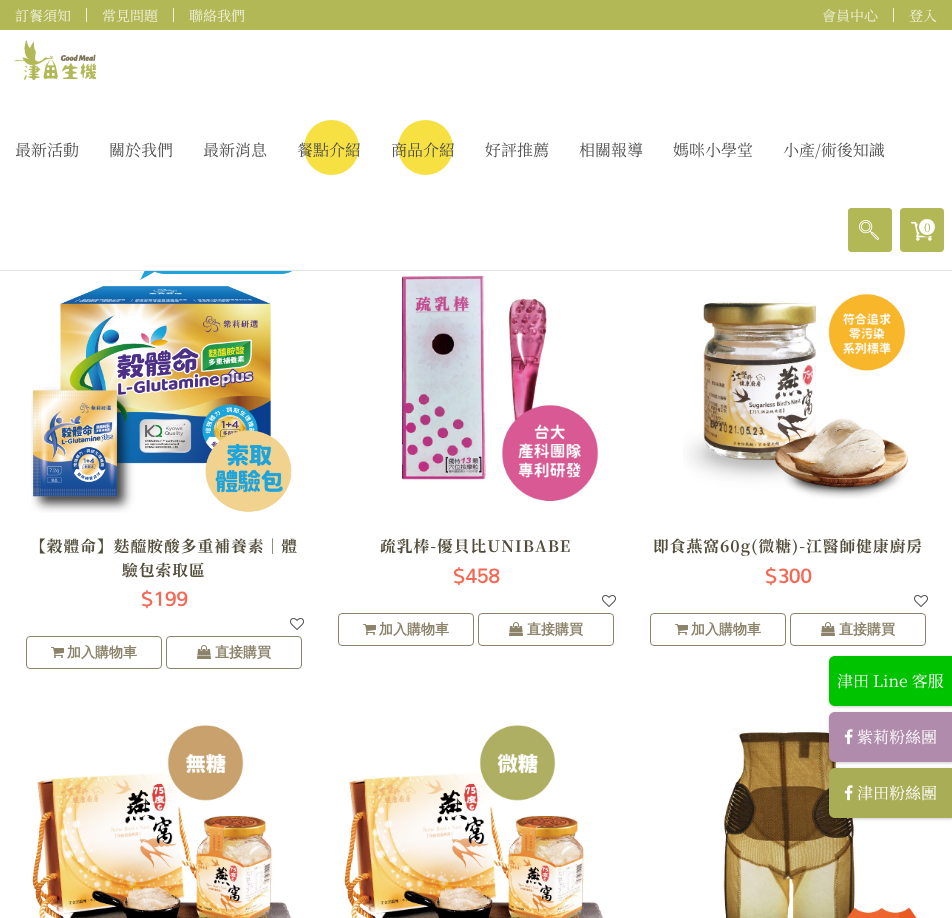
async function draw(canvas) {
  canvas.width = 952;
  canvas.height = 918;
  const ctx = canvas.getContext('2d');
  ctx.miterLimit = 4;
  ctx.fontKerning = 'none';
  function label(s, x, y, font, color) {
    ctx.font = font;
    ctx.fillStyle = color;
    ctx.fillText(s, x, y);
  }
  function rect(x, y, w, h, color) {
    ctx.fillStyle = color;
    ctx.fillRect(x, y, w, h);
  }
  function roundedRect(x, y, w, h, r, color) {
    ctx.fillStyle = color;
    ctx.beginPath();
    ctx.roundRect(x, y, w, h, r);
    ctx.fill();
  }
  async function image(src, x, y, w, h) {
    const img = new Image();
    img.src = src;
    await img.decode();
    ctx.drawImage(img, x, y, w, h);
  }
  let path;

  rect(0, 0, 952, 918, '#fff');
  rect(0, 0, 952, 30, '#b3b856');
  rect(86, 8, 1, 14, '#f0f1dd');
  label('訂餐須知', 15, 21, '14px Noto Serif TC', '#f0f1dd');
  rect(173, 8, 1, 14, '#f0f1dd');
  label('常見問題', 102, 21, '14px Noto Serif TC', '#f0f1dd');
  label('聯絡我們', 189, 21, '14px Noto Serif TC', '#f0f1dd');
  rect(893, 8, 1, 14, '#f0f1dd');
  label('會員中心', 822, 21, '14px Noto Serif TC', '#f0f1dd');
  label('登入', 909, 21, '14px Noto Serif TC', '#f0f1dd');
  rect(0, 270, 952, 1, '#e1e1e1');
  await image('assets/img1.png', 14, 40, 82, 40);
  label('最新活動', 15, 156, '16px Noto Serif TC', '#4d4d4d');
  label('關於我們', 109, 156, '16px Noto Serif TC', '#4d4d4d');
  label('最新消息', 203, 156, '16px Noto Serif TC', '#4d4d4d');
  ctx.fillStyle = '#f7e041';
  ctx.beginPath();
  ctx.arc(331.5, 147.5, 27.5, 0, 2 * Math.PI);
  ctx.fill();
  label('餐點介紹', 297, 156, '16px Noto Serif TC', '#4d4d4d');
  ctx.fillStyle = '#f7e041';
  ctx.beginPath();
  ctx.arc(425.5, 147.5, 27.5, 0, 2 * Math.PI);
  ctx.fill();
  label('商品介紹', 391, 156, '16px Noto Serif TC', '#4d4d4d');
  label('好評推薦', 485, 156, '16px Noto Serif TC', '#4d4d4d');
  label('相關報導', 579, 156, '16px Noto Serif TC', '#4d4d4d');
  label('媽咪小學堂', 673, 156, '16px Noto Serif TC', '#4d4d4d');
  label('小產/術後知識', 783, 156, '16px Noto Serif TC', '#4d4d4d');
  roundedRect(848, 208, 44, 44, 4, '#b3b856');
  await image('assets/img2.png', 859, 220, 20, 20);
  ctx.beginPath();
  ctx.roundRect(848.5, 208.5, 43, 43, 3.5);
  ctx.strokeStyle = '#b3b856';
  ctx.stroke();
  roundedRect(900, 208, 44, 44, 4, '#b3b856');
  await image('assets/img3.png', 911, 221, 21, 20);
  ctx.fillStyle = '#fff';
  ctx.beginPath();
  ctx.arc(927, 227, 9, 0, 2 * Math.PI);
  ctx.fill();
  ctx.lineWidth = 2;
  ctx.stroke();
  label('0', 924, 232, '12px Noto Serif TC', '#b3b856');
  await image('assets/img4.png', 31, 271, 270, 242);
  ctx.letterSpacing = '1px';
  label('【穀體命】麩醯胺酸多重補養素｜體', 30, 552, 'bold 15.75px Noto Serif TC', '#524c3a');
  label('驗包索取區', 122, 576, 'bold 15.75px Noto Serif TC', '#524c3a');
  ctx.letterSpacing = '0px';
  label('$199', 141, 606, 'bold 20px Mandali', '#f56954');
  await image('assets/img5.png', 290, 618, 14, 12);
  ctx.beginPath();
  ctx.roundRect(26.5, 636.5, 135, 32, 3.5);
  ctx.strokeStyle = '#8c836b';
  ctx.lineWidth = 1;
  ctx.stroke();
  await image('assets/img6.png', 51, 647, 13, 11);
  label('加入購物車', 67, 657, 'bold 14px WenQuanYi Zen Hei', '#8c836b');
  ctx.beginPath();
  ctx.roundRect(166.5, 636.5, 135, 32, 3.5);
  ctx.stroke();
  await image('assets/img7.png', 197, 645, 14, 14);
  label('直接購買', 215, 657, 'bold 14px WenQuanYi Zen Hei', '#8c836b');
  await image('assets/img8.png', 402, 275, 197, 226);
  ctx.letterSpacing = '1px';
  label('疏乳棒-優貝比UNIBABE', 380, 552, 'bold 15.75px Noto Serif TC', '#524c3a');
  ctx.letterSpacing = '0px';
  label('$458', 453, 583, 'bold 20px Mandali', '#f56954');
  await image('assets/img5.png', 602, 595, 14, 12);
  ctx.beginPath();
  ctx.roundRect(338.5, 613.5, 135, 32, 3.5);
  ctx.stroke();
  await image('assets/img6.png', 363, 624, 13, 11);
  label('加入購物車', 379, 634, 'bold 14px WenQuanYi Zen Hei', '#8c836b');
  ctx.beginPath();
  ctx.roundRect(478.5, 613.5, 135, 32, 3.5);
  ctx.stroke();
  await image('assets/img7.png', 509, 622, 14, 14);
  label('直接購買', 527, 634, 'bold 14px WenQuanYi Zen Hei', '#8c836b');
  await image('assets/img9.png', 683, 292, 225, 207);
  ctx.letterSpacing = '1px';
  label('即食燕窩60g(微糖)-江醫師健康廚房', 653, 552, 'bold 15.75px Noto Serif TC', '#524c3a');
  ctx.letterSpacing = '0px';
  label('$300', 765, 583, 'bold 20px Mandali', '#f56954');
  await image('assets/img5.png', 914, 595, 14, 12);
  ctx.beginPath();
  ctx.roundRect(650.5, 613.5, 135, 32, 3.5);
  ctx.stroke();
  await image('assets/img6.png', 675, 624, 13, 11);
  label('加入購物車', 691, 634, 'bold 14px WenQuanYi Zen Hei', '#8c836b');
  ctx.beginPath();
  ctx.roundRect(790.5, 613.5, 135, 32, 3.5);
  ctx.stroke();
  await image('assets/img7.png', 821, 622, 14, 14);
  label('直接購買', 839, 634, 'bold 14px WenQuanYi Zen Hei', '#8c836b');
  await image('assets/img10.png', 31, 724, 261, 194);
  await image('assets/img11.png', 343, 724, 261, 194);
  await image('assets/img12.png', 723, 725, 195, 193);
  ctx.fillStyle = '#00000033';
  ctx.filter = 'blur(1.5px)';
  ctx.beginPath();
  ctx.roundRect(829, 657, 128, 50, 6);
  ctx.fill();
  ctx.filter = 'none';
  ctx.fillStyle = '#00c300';
  path = new Path2D('M835 656H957V706H835C831.5 706 829 703.5 829 700V662C829 658.5 831.5 656 835 656Z');
  ctx.fill(path);
  label('津田 Line 客服', 837, 687, '16px Noto Serif TC', '#fff');
  ctx.fillStyle = '#00000033';
  ctx.filter = 'blur(1.5px)';
  ctx.beginPath();
  ctx.roundRect(829, 713, 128, 50, 6);
  ctx.fill();
  ctx.filter = 'none';
  ctx.fillStyle = '#b08bac';
  path = new Path2D('M835 712H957V762H835C831.5 762 829 759.5 829 756V718C829 714.5 831.5 712 835 712Z');
  ctx.fill(path);
  await image('assets/img13.png', 844, 729, 9, 16);
  label('紫莉粉絲團', 857, 743, '16px Noto Serif TC', '#fff');
  ctx.fillStyle = '#00000033';
  ctx.filter = 'blur(1.5px)';
  ctx.beginPath();
  ctx.roundRect(829, 769, 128, 50, 6);
  ctx.fill();
  ctx.filter = 'none';
  ctx.fillStyle = '#a9ad56';
  path = new Path2D('M835 768H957V818H835C831.5 818 829 815.5 829 812V774C829 770.5 831.5 768 835 768Z');
  ctx.fill(path);
  await image('assets/img14.png', 844, 785, 9, 16);
  label('津田粉絲團', 857, 799, '16px Noto Serif TC', '#fff');
}

draw(document.querySelector('canvas'));
